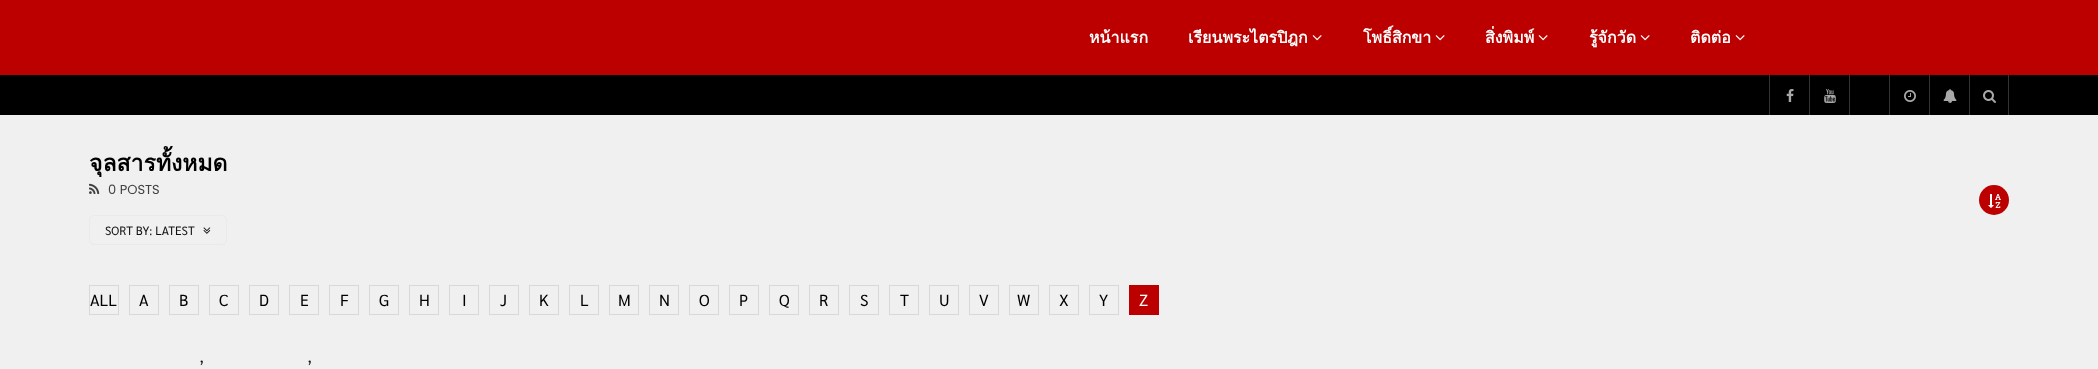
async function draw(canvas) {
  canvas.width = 2098;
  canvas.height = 369;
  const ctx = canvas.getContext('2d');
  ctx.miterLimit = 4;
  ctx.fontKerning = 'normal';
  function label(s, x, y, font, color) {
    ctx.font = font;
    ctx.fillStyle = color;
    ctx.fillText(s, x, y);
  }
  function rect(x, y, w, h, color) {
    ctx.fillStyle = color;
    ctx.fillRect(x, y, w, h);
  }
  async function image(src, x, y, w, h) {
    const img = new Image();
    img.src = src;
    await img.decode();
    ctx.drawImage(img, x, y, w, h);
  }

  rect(0, 0, 2098, 369, '#f0f0f1');
  rect(0, 0, 2098, 75, '#bc0000');
  label('หน้าแรก', 1089, 43, 'bold 16px Loma', '#fff');
  label('เรียนพระไตรปิฎก', 1188, 43, 'bold 16px Loma', '#fff');
  await image('assets/img1.png', 1312, 35, 10, 6);
  label('โพธิ์สิกขา', 1363, 43, 'bold 16px Loma', '#fff');
  await image('assets/img1.png', 1435, 35, 10, 6);
  label('สิ่งพิมพ์', 1485, 43, 'bold 16px Loma', '#fff');
  await image('assets/img1.png', 1538, 35, 10, 6);
  label('รู้จักวัด', 1589, 43, 'bold 16px Loma', '#fff');
  await image('assets/img1.png', 1640, 35, 10, 6);
  label('ติดต่อ', 1690, 43, 'bold 16px Loma', '#fff');
  await image('assets/img1.png', 1735, 35, 10, 6);
  rect(0, 75, 2098, 40, '#000');
  rect(1769, 75, 1, 40, '#333');
  await image('assets/img2.png', 1786, 89, 8, 13);
  rect(1809, 75, 1, 40, '#333');
  await image('assets/img3.png', 1824, 89, 12, 14);
  rect(1849, 75, 1, 40, '#333');
  rect(1889, 75, 1, 40, '#333');
  await image('assets/img4.png', 1904, 90, 12, 12);
  rect(1929, 75, 1, 40, '#333');
  await image('assets/img5.png', 1943, 89, 14, 14);
  rect(2008, 75, 1, 40, '#333');
  rect(1969, 75, 1, 40, '#333');
  await image('assets/img6.png', 1983, 90, 13, 13);
  label('จุลสารทั้งหมด', 89, 171, 'bold 23px Loma', '#000');
  await image('assets/img7.png', 89, 183, 11, 11);
  label('0 POSTS', 108, 194, '13px Poppins', '#414141');
  ctx.beginPath();
  ctx.roundRect(89.5, 215.5, 137, 29, 4.5);
  ctx.strokeStyle = '#eaeaea';
  ctx.stroke();
  label('SORT BY: LATEST', 105, 235, '12px Sarabun', '#111');
  await image('assets/img8.png', 203, 227, 8, 7);
  ctx.fillStyle = '#bc0000';
  ctx.beginPath();
  ctx.arc(1994, 200, 15, 0, 2 * Math.PI);
  ctx.fill();
  await image('assets/img9.png', 1988, 194, 13, 14);
  ctx.strokeStyle = '#d8d8d9';
  ctx.strokeRect(89.5, 285.5, 29, 29);
  label('ALL', 90, 306, '16px Sarabun', '#000');
  ctx.strokeRect(129.5, 285.5, 29, 29);
  label('A', 139, 306, '16px Sarabun', '#000');
  ctx.strokeRect(169.5, 285.5, 29, 29);
  label('B', 179, 306, '16px Sarabun', '#000');
  ctx.strokeRect(209.5, 285.5, 29, 29);
  label('C', 219, 306, '16px Sarabun', '#000');
  ctx.strokeRect(249.5, 285.5, 29, 29);
  label('D', 259, 306, '16px Sarabun', '#000');
  ctx.strokeRect(289.5, 285.5, 29, 29);
  label('E', 300, 306, '16px Sarabun', '#000');
  ctx.strokeRect(329.5, 285.5, 29, 29);
  label('F', 340, 306, '16px Sarabun', '#000');
  ctx.strokeRect(369.5, 285.5, 29, 29);
  label('G', 379, 306, '16px Sarabun', '#000');
  ctx.strokeRect(409.5, 285.5, 29, 29);
  label('H', 419, 306, '16px Sarabun', '#000');
  ctx.strokeRect(449.5, 285.5, 29, 29);
  label('I', 462, 306, '16px Sarabun', '#000');
  ctx.strokeRect(489.5, 285.5, 29, 29);
  label('J', 500, 306, '16px Sarabun', '#000');
  ctx.strokeRect(529.5, 285.5, 29, 29);
  label('K', 539, 306, '16px Sarabun', '#000');
  ctx.strokeRect(569.5, 285.5, 29, 29);
  label('L', 580, 306, '16px Sarabun', '#000');
  ctx.strokeRect(609.5, 285.5, 29, 29);
  label('M', 618, 306, '16px Sarabun', '#000');
  ctx.strokeRect(649.5, 285.5, 29, 29);
  label('N', 659, 306, '16px Sarabun', '#000');
  ctx.strokeRect(689.5, 285.5, 29, 29);
  label('O', 699, 306, '16px Sarabun', '#000');
  ctx.strokeRect(729.5, 285.5, 29, 29);
  label('P', 739, 306, '16px Sarabun', '#000');
  ctx.strokeRect(769.5, 285.5, 29, 29);
  label('Q', 779, 306, '16px Sarabun', '#000');
  ctx.strokeRect(809.5, 285.5, 29, 29);
  label('R', 819, 306, '16px Sarabun', '#000');
  ctx.strokeRect(849.5, 285.5, 29, 29);
  label('S', 860, 306, '16px Sarabun', '#000');
  ctx.strokeRect(889.5, 285.5, 29, 29);
  label('T', 900, 306, '16px Sarabun', '#000');
  ctx.strokeRect(929.5, 285.5, 29, 29);
  label('U', 939, 306, '16px Sarabun', '#000');
  ctx.strokeRect(969.5, 285.5, 29, 29);
  label('V', 979, 306, '16px Sarabun', '#000');
  ctx.strokeRect(1009.5, 285.5, 29, 29);
  label('W', 1017, 306, '16px Sarabun', '#000');
  ctx.strokeRect(1049.5, 285.5, 29, 29);
  label('X', 1059, 306, '16px Sarabun', '#000');
  ctx.strokeRect(1089.5, 285.5, 29, 29);
  label('Y', 1099, 306, '16px Sarabun', '#000');
  rect(1129, 285, 30, 30, '#bc0000');
  label('Z', 1139, 306, '16px Sarabun', '#fff');
  label('’', 199, 372, '16px Sarabun', '#111');
  label('’', 307, 372, '16px Sarabun', '#111');
}

draw(document.querySelector('canvas'));
